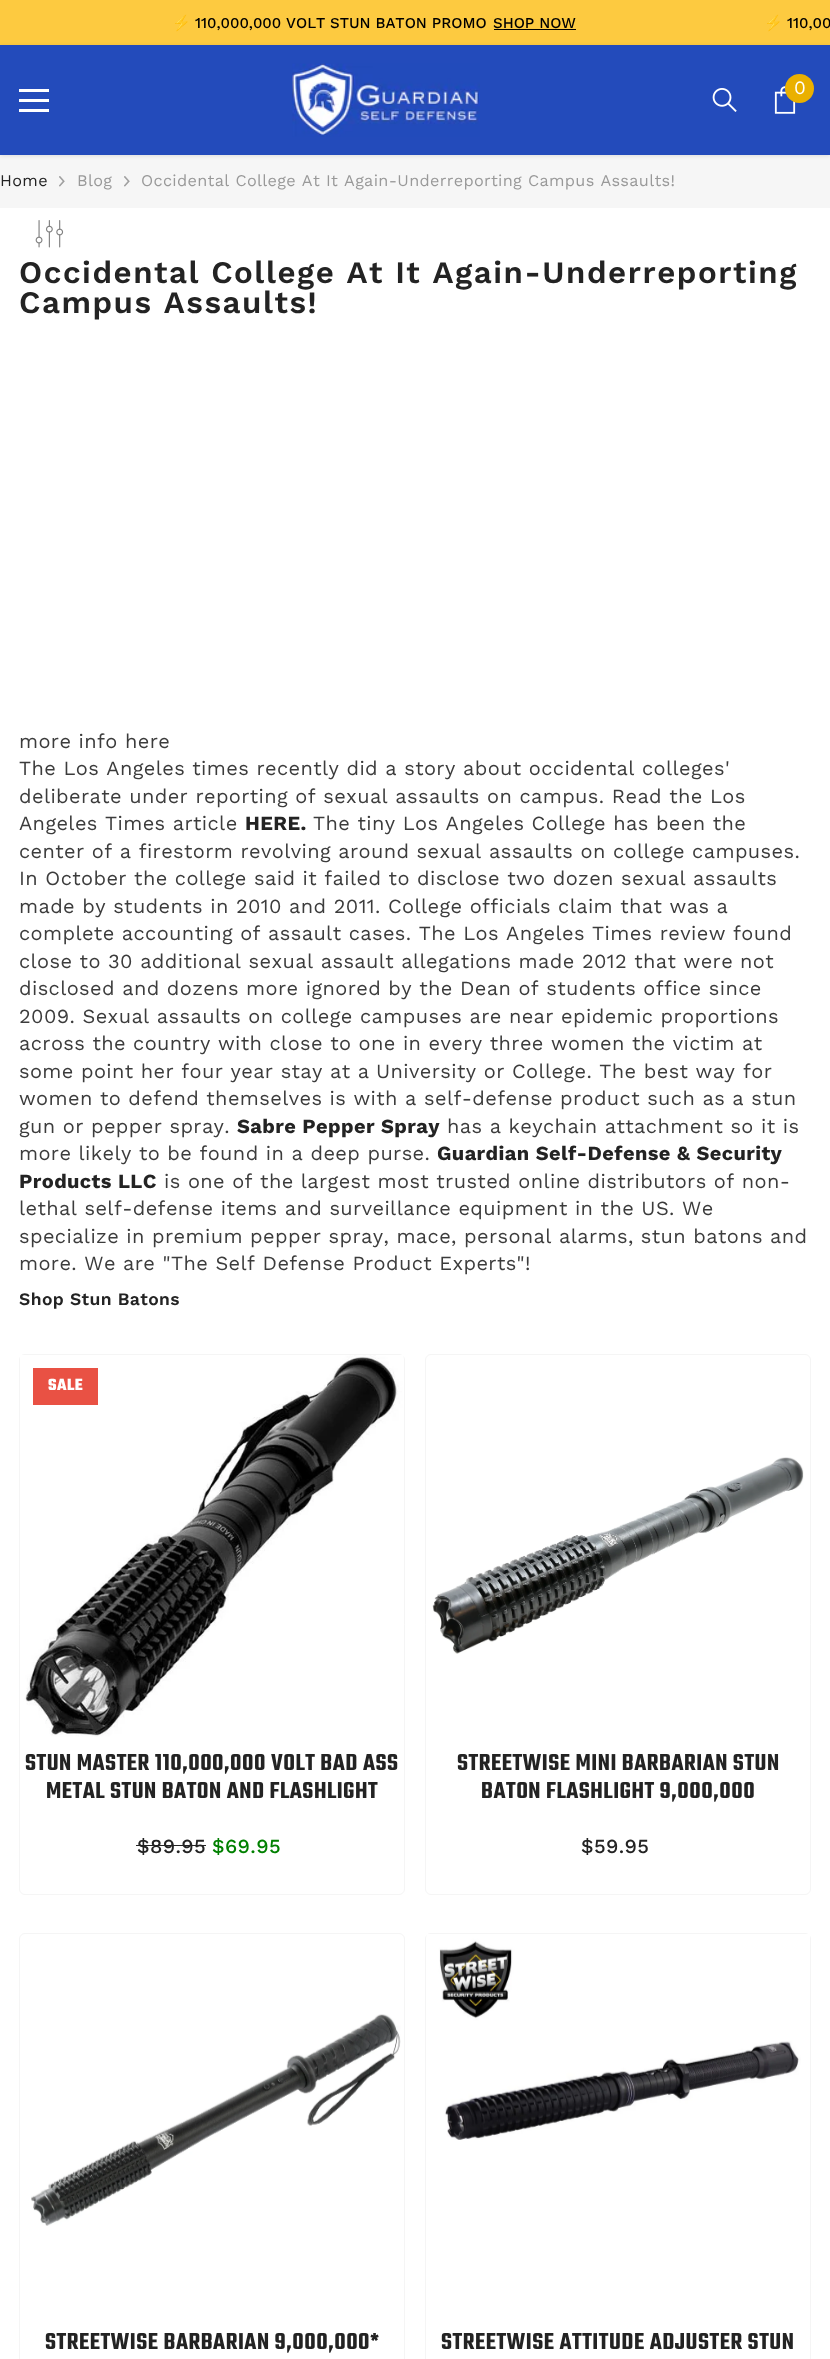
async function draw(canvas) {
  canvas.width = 830;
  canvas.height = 2359;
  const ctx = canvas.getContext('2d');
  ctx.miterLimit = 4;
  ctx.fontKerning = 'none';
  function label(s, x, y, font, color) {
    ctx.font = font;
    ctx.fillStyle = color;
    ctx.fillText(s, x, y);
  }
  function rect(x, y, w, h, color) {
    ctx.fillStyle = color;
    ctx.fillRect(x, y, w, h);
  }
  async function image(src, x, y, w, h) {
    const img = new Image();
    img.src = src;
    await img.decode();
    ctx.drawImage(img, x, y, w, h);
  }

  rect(0, 0, 830, 2359, '#fff');
  rect(0, 0, 830, 45, '#fdca40');
  label('⚡', 172, 28, '15px Noto Color Emoji', '#000');
  label('110,000,000 VOLT', 195, 28, '500 15px Work Sans', '#000');
  label('STUN BATON PROMO', 330, 28, '500 15px Work Sans', '#000');
  label('SHOP NOW', 493, 28, '500 15px Work Sans', '#000');
  rect(494, 29, 82, 1, '#000');
  label('⚡', 764, 28, '15px Noto Color Emoji', '#000');
  label('110,00', 787, 28, '500 15px Work Sans', '#000');
  rect(0, 155, 830, 53, '#f6f6f6');
  ctx.fillStyle = '#0000001a';
  ctx.filter = 'blur(2px)';
  ctx.beginPath();
  ctx.rect(0, 46, 830, 110);
  ctx.fill();
  ctx.filter = 'none';
  rect(0, 45, 830, 110, '#234bbb');
  rect(19, 99, 30, 3, '#fff');
  rect(19, 89, 30, 3, '#fff');
  rect(19, 109, 30, 3, '#fff');
  await image('assets/img1.png', 292, 63, 188, 74);
  await image('assets/img2.png', 712, 88, 25, 24);
  await image('assets/img3.png', 774, 86, 22, 28);
  ctx.fillStyle = '#eab000';
  ctx.beginPath();
  ctx.arc(799.5, 88.5, 14.5, 0, 2 * Math.PI);
  ctx.fill();
  label('0', 794, 94, '19px Work Sans', '#fff');
  ctx.letterSpacing = '0.33px';
  label('Home', 0, 186, '16.25px Work Sans', '#232323');
  await image('assets/img4.png', 59, 176, 6, 11);
  label('Blog', 77, 186, '16.25px Work Sans', '#999');
  await image('assets/img4.png', 124, 176, 6, 11);
  label('Occidental College At It Again-Underreporting Campus Assaults!', 141, 186, '16.25px Work Sans', '#999');
  await image('assets/img5.png', 35, 220, 29, 28);
  ctx.letterSpacing = '1.55px';
  label('Occidental College At It Again-Underreporting', 19, 283, '600 31.25px Work Sans', '#232323');
  label('Campus Assaults!', 19, 313, '600 31.25px Work Sans', '#232323');
  ctx.letterSpacing = '0.4px';
  label('more info here', 19, 748, '20px Work Sans', '#3c3c3c');
  label('The Los Angeles times recently did a story', 19, 775, '20px Work Sans', '#3c3c3c');
  label('about occidental colleges\'', 463, 775, '20px Work Sans', '#3c3c3c');
  label('deliberate under reporting of sexual assaults', 19, 803, '20px Work Sans', '#3c3c3c');
  label('on campus. Read the Los', 487, 803, '20px Work Sans', '#3c3c3c');
  label('Angeles Times article', 19, 830, '20px Work Sans', '#3c3c3c');
  label('HERE.', 245, 830, 'bold 20px Work Sans', '#232323');
  label('The tiny Los Angeles College has been the', 313, 830, '20px Work Sans', '#3c3c3c');
  label('center of a firestorm revolving around sexual', 19, 858, '20px Work Sans', '#3c3c3c');
  label('assaults on college campuses.', 489, 858, '20px Work Sans', '#3c3c3c');
  label('In October the college said it failed to disclose two dozen sexual', 19, 885, '20px Work Sans', '#3c3c3c');
  label('assaults', 693, 885, '20px Work Sans', '#3c3c3c');
  label('made by students in 2010 and 2011. College officials claim that was a', 19, 913, '20px Work Sans', '#3c3c3c');
  label('complete accounting of assault cases. The Los Angeles', 19, 940, '20px Work Sans', '#3c3c3c');
  label('Times review found', 592, 940, '20px Work Sans', '#3c3c3c');
  label('close to 30 additional sexual assault allegations made 2012 that were', 19, 968, '20px Work Sans', '#3c3c3c');
  label('not', 740, 968, '20px Work Sans', '#3c3c3c');
  label('disclosed and dozens more ignored by the Dean of students office since', 19, 995, '20px Work Sans', '#3c3c3c');
  label('2009. Sexual assaults on college campuses are near epidemic proportions', 19, 1023, '20px Work Sans', '#3c3c3c');
  label('across the country with close to one in every three women', 19, 1050, '20px Work Sans', '#3c3c3c');
  label('the victim at', 632, 1050, '20px Work Sans', '#3c3c3c');
  label('some point her four year stay at a', 19, 1078, '20px Work Sans', '#3c3c3c');
  label('University or College. The best way', 376, 1078, '20px Work Sans', '#3c3c3c');
  label('for', 743, 1078, '20px Work Sans', '#3c3c3c');
  label('women to defend themselves is with a self-defense', 19, 1105, '20px Work Sans', '#3c3c3c');
  label('product such as a stun', 560, 1105, '20px Work Sans', '#3c3c3c');
  label('gun or pepper spray.', 19, 1133, '20px Work Sans', '#3c3c3c');
  label('Sabre Pepper Spray', 237, 1133, 'bold 20px Work Sans', '#232323');
  label('has a keychain attachment so it is', 447, 1133, '20px Work Sans', '#3c3c3c');
  label('more likely to be found in a deep purse.', 19, 1160, '20px Work Sans', '#3c3c3c');
  label('Guardian Self-Defense & Security', 437, 1160, 'bold 20px Work Sans', '#232323');
  label('Products LLC', 19, 1188, 'bold 20px Work Sans', '#232323');
  label('is one of the largest most trusted online distributors of non-', 164, 1188, '20px Work Sans', '#3c3c3c');
  label('lethal self-defense items and surveillance equipment in the US. We', 19, 1215, '20px Work Sans', '#3c3c3c');
  label('specialize in premium pepper spray, mace, personal', 19, 1243, '20px Work Sans', '#3c3c3c');
  label('alarms, stun batons and', 559, 1243, '20px Work Sans', '#3c3c3c');
  label('more. We are "The Self Defense Product Experts"!', 19, 1270, '20px Work Sans', '#3c3c3c');
  label('Shop Stun Batons', 19, 1305, '600 17.5px Work Sans', '#232323');
  ctx.beginPath();
  ctx.roundRect(19.5, 1354.5, 385, 540, 5.5);
  ctx.strokeStyle = '#f5f5f5';
  ctx.stroke();
  await image('assets/img6.png', 20, 1355, 384, 382);
  rect(33, 1368, 65, 37, '#e95144');
  ctx.letterSpacing = '0.5px';
  label('SALE', 48, 1390, 'bold 17.5px Teko', '#fff');
  label('STUN MASTER 110,000,000 VOLT BAD ASS', 25, 1770, '600 25px Teko', '#232323');
  label('METAL STUN BATON AND FLASHLIGHT', 46, 1798, '600 25px Teko', '#232323');
  ctx.letterSpacing = '0.4px';
  label('$89.95', 137, 1853, '500 20px Work Sans', '#232323');
  rect(136, 1845, 70, 1, '#232323');
  label('$69.95', 212, 1853, '500 20px Work Sans', '#008000');
  ctx.beginPath();
  ctx.roundRect(425.5, 1354.5, 385, 540, 5.5);
  ctx.stroke();
  await image('assets/img7.png', 432, 1457, 372, 197);
  ctx.letterSpacing = '0.5px';
  label('STREETWISE MINI BARBARIAN STUN', 457, 1770, '600 25px Teko', '#232323');
  label('BATON FLASHLIGHT 9,000,000', 481, 1798, '600 25px Teko', '#232323');
  ctx.letterSpacing = '0.4px';
  label('$59.95', 581, 1853, '500 20px Work Sans', '#232323');
  ctx.beginPath();
  ctx.roundRect(19.5, 1933.5, 385, 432, 5.5);
  ctx.stroke();
  await image('assets/img8.png', 31, 2014, 370, 212);
  ctx.letterSpacing = '0.5px';
  label('STREETWISE BARBARIAN 9,000,000*', 45, 2349, '600 25px Teko', '#232323');
  ctx.beginPath();
  ctx.roundRect(425.5, 1933.5, 385, 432, 5.5);
  ctx.stroke();
  await image('assets/img9.png', 426, 1934, 384, 206);
  label('STREETWISE ATTITUDE ADJUSTER STUN', 441, 2349, '600 25px Teko', '#232323');
}

draw(document.querySelector('canvas'));
